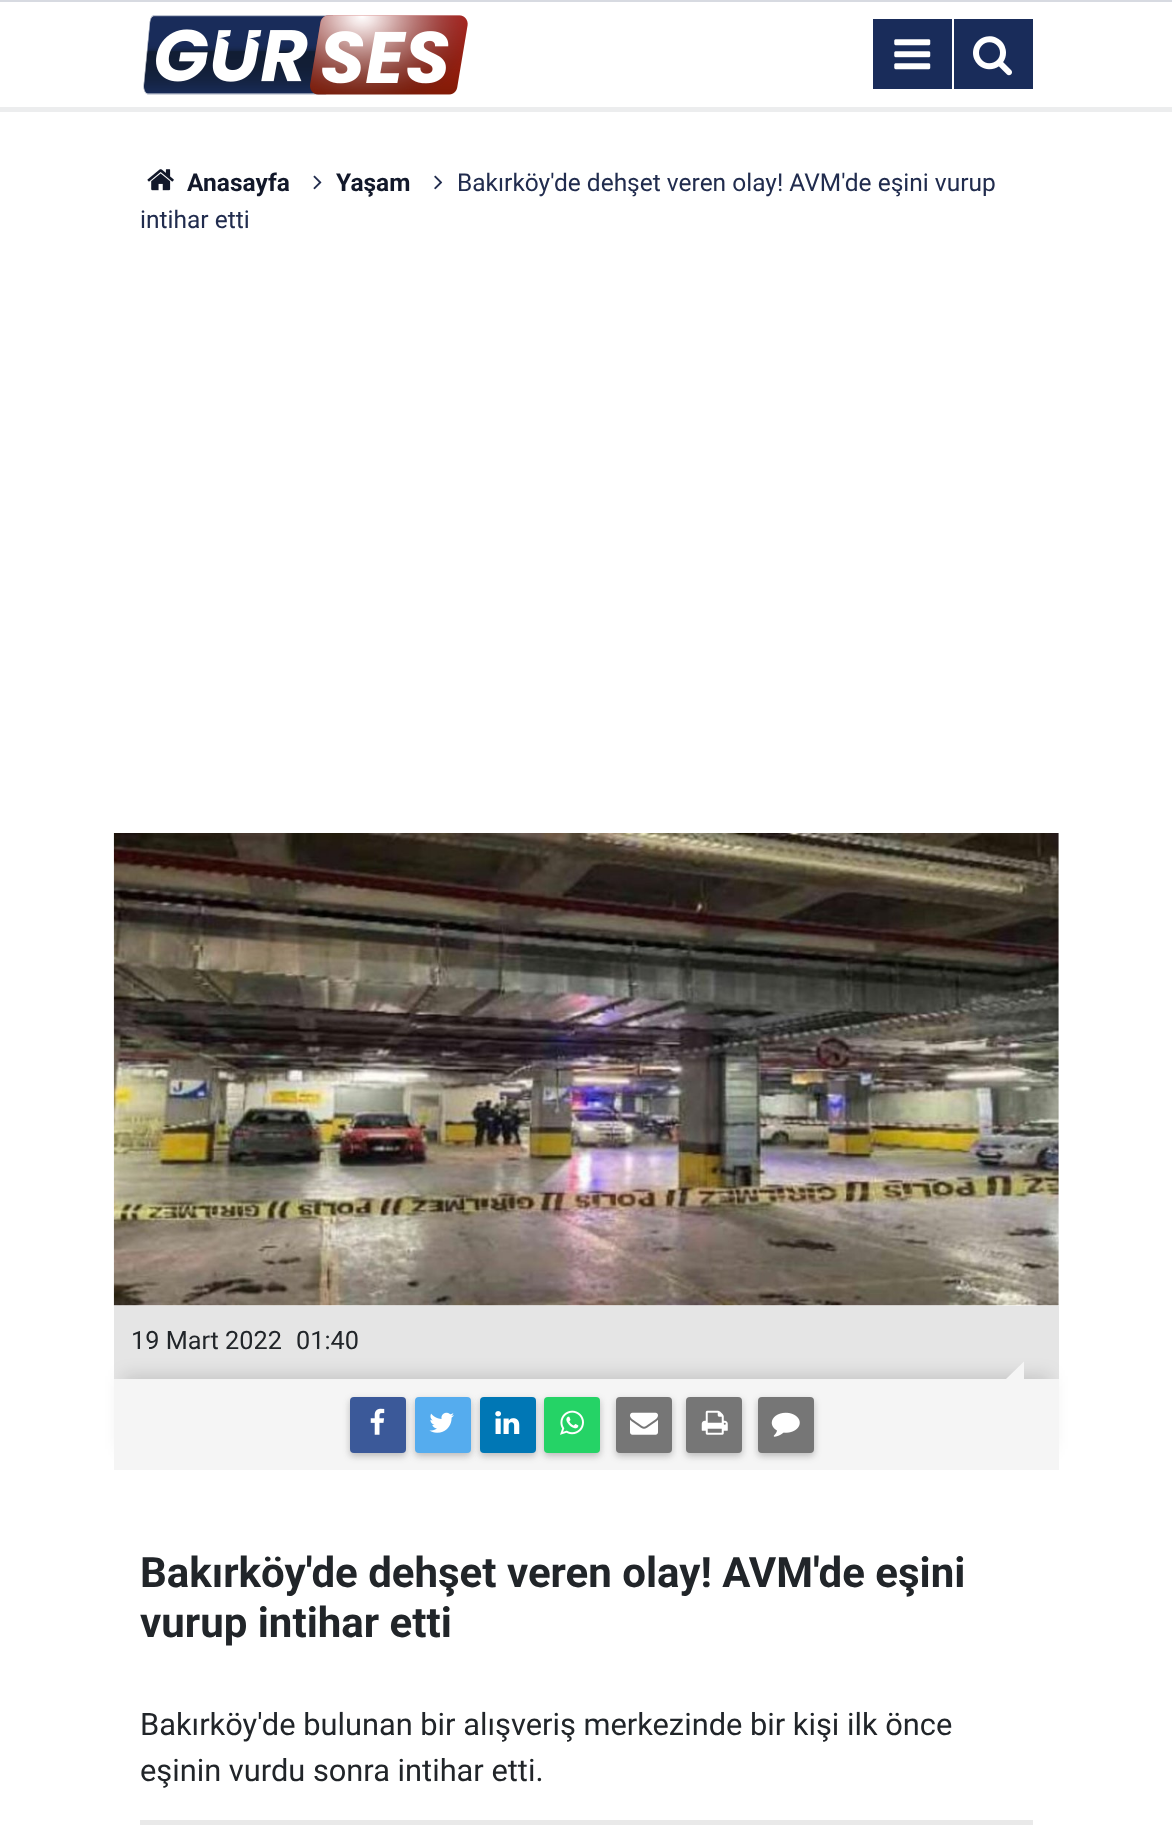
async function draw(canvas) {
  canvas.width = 1172;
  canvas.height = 1847;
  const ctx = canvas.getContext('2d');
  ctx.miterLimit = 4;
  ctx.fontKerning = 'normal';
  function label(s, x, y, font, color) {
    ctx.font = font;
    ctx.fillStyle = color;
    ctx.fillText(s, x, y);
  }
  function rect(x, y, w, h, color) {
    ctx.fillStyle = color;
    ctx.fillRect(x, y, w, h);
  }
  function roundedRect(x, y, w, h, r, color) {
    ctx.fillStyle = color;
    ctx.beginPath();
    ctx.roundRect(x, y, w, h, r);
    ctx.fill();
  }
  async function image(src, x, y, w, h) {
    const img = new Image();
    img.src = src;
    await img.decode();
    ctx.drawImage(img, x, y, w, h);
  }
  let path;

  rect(0, 0, 1172, 1847, '#fff');
  rect(0, 0, 1172, 2, '#d7dae1');
  rect(0, 107, 1172, 5, '#ecedee');
  await image('assets/img1.png', 143, 15, 325, 80);
  rect(873, 19, 79, 70, '#192c5a');
  await image('assets/img2.png', 894, 39, 37, 31);
  rect(954, 19, 79, 70, '#192c5a');
  await image('assets/img3.png', 973, 36, 39, 40);
  await image('assets/img4.png', 147, 169, 27, 22);
  label('Anasayfa', 187, 191, 'bold 24.5px Roboto', '#12182a');
  await image('assets/img5.png', 313, 175, 9, 15);
  label('Yaşam', 336, 191, 'bold 24.5px Roboto', '#12182a');
  await image('assets/img6.png', 434, 175, 9, 15);
  label('Bakırköy\'de dehşet veren olay! AVM\'de eşini vurup', 457, 191, '24.5px Roboto', '#212c4e');
  label('intihar etti', 140, 228, '24.5px Roboto', '#212c4e');
  rect(114, 833, 945, 473, '#f8f8f8');
  await image('assets/img7.png', 113, 833, 946, 473);
  rect(114, 1306, 945, 73, '#e5e5e5');
  label('19 Mart 2022', 131, 1349, '25.25px Roboto', '#212529');
  label('01:40', 296, 1349, '25.25px Roboto', '#212529');
  ctx.fillStyle = '#00000026';
  ctx.filter = 'blur(9px)';
  ctx.beginPath();
  ctx.rect(123, 1376, 927, 73);
  ctx.fill();
  ctx.filter = 'none';
  rect(114, 1379, 945, 91, '#f5f5f5');
  path = new Path2D('M1024 1379H1006L1024 1361.5Z');
  ctx.fill(path);
  ctx.fillStyle = '#3232324d';
  ctx.filter = 'blur(3.5px)';
  ctx.beginPath();
  ctx.roundRect(350, 1400, 56, 56, 4);
  ctx.fill();
  ctx.filter = 'none';
  roundedRect(350, 1397, 56, 56, 4, '#3b5999');
  await image('assets/img8.png', 370, 1408, 15, 27);
  ctx.fillStyle = '#3232324d';
  ctx.filter = 'blur(3.5px)';
  ctx.beginPath();
  ctx.roundRect(415, 1400, 56, 56, 4);
  ctx.fill();
  ctx.filter = 'none';
  roundedRect(415, 1397, 56, 56, 4, '#55acee');
  await image('assets/img9.png', 429, 1412, 25, 21);
  ctx.fillStyle = '#3232324d';
  ctx.filter = 'blur(3.5px)';
  ctx.beginPath();
  ctx.roundRect(480, 1400, 56, 56, 4);
  ctx.fill();
  ctx.filter = 'none';
  roundedRect(480, 1397, 56, 56, 4, '#0077b5');
  await image('assets/img10.png', 495, 1411, 25, 23);
  ctx.fillStyle = '#3232324d';
  ctx.filter = 'blur(3.5px)';
  ctx.beginPath();
  ctx.roundRect(544, 1400, 56, 56, 4);
  ctx.fill();
  ctx.filter = 'none';
  roundedRect(544, 1397, 56, 56, 4, '#25d366');
  await image('assets/img11.png', 560, 1410, 24, 25);
  ctx.fillStyle = '#3232324d';
  ctx.filter = 'blur(3.5px)';
  ctx.beginPath();
  ctx.roundRect(616, 1400, 56, 56, 4);
  ctx.fill();
  ctx.filter = 'none';
  roundedRect(616, 1397, 56, 56, 4, '#767676');
  await image('assets/img12.png', 630, 1412, 28, 23);
  ctx.fillStyle = '#3232324d';
  ctx.filter = 'blur(3.5px)';
  ctx.beginPath();
  ctx.roundRect(686, 1400, 56, 56, 4);
  ctx.fill();
  ctx.filter = 'none';
  roundedRect(686, 1397, 56, 56, 4, '#767676');
  await image('assets/img13.png', 701, 1410, 27, 25);
  ctx.fillStyle = '#3232324d';
  ctx.filter = 'blur(3.5px)';
  ctx.beginPath();
  ctx.roundRect(758, 1400, 56, 56, 4);
  ctx.fill();
  ctx.filter = 'none';
  roundedRect(758, 1397, 56, 56, 4, '#767676');
  await image('assets/img14.png', 771, 1412, 29, 25);
  rect(140, 1820, 893, 5, '#e9e9e9');
  label('Bakırköy\'de dehşet veren olay! AVM\'de eşini', 140, 1587, 'bold 42px Roboto', '#212529');
  label('vurup intihar etti', 140, 1637, 'bold 42px Roboto', '#212529');
  label('Bakırköy\'de bulunan bir alışveriş merkezinde bir kişi ilk önce', 140, 1735, '30.8px Roboto', '#212529');
  label('eşinin vurdu sonra intihar etti.', 140, 1781, '30.8px Roboto', '#212529');
}

draw(document.querySelector('canvas'));
